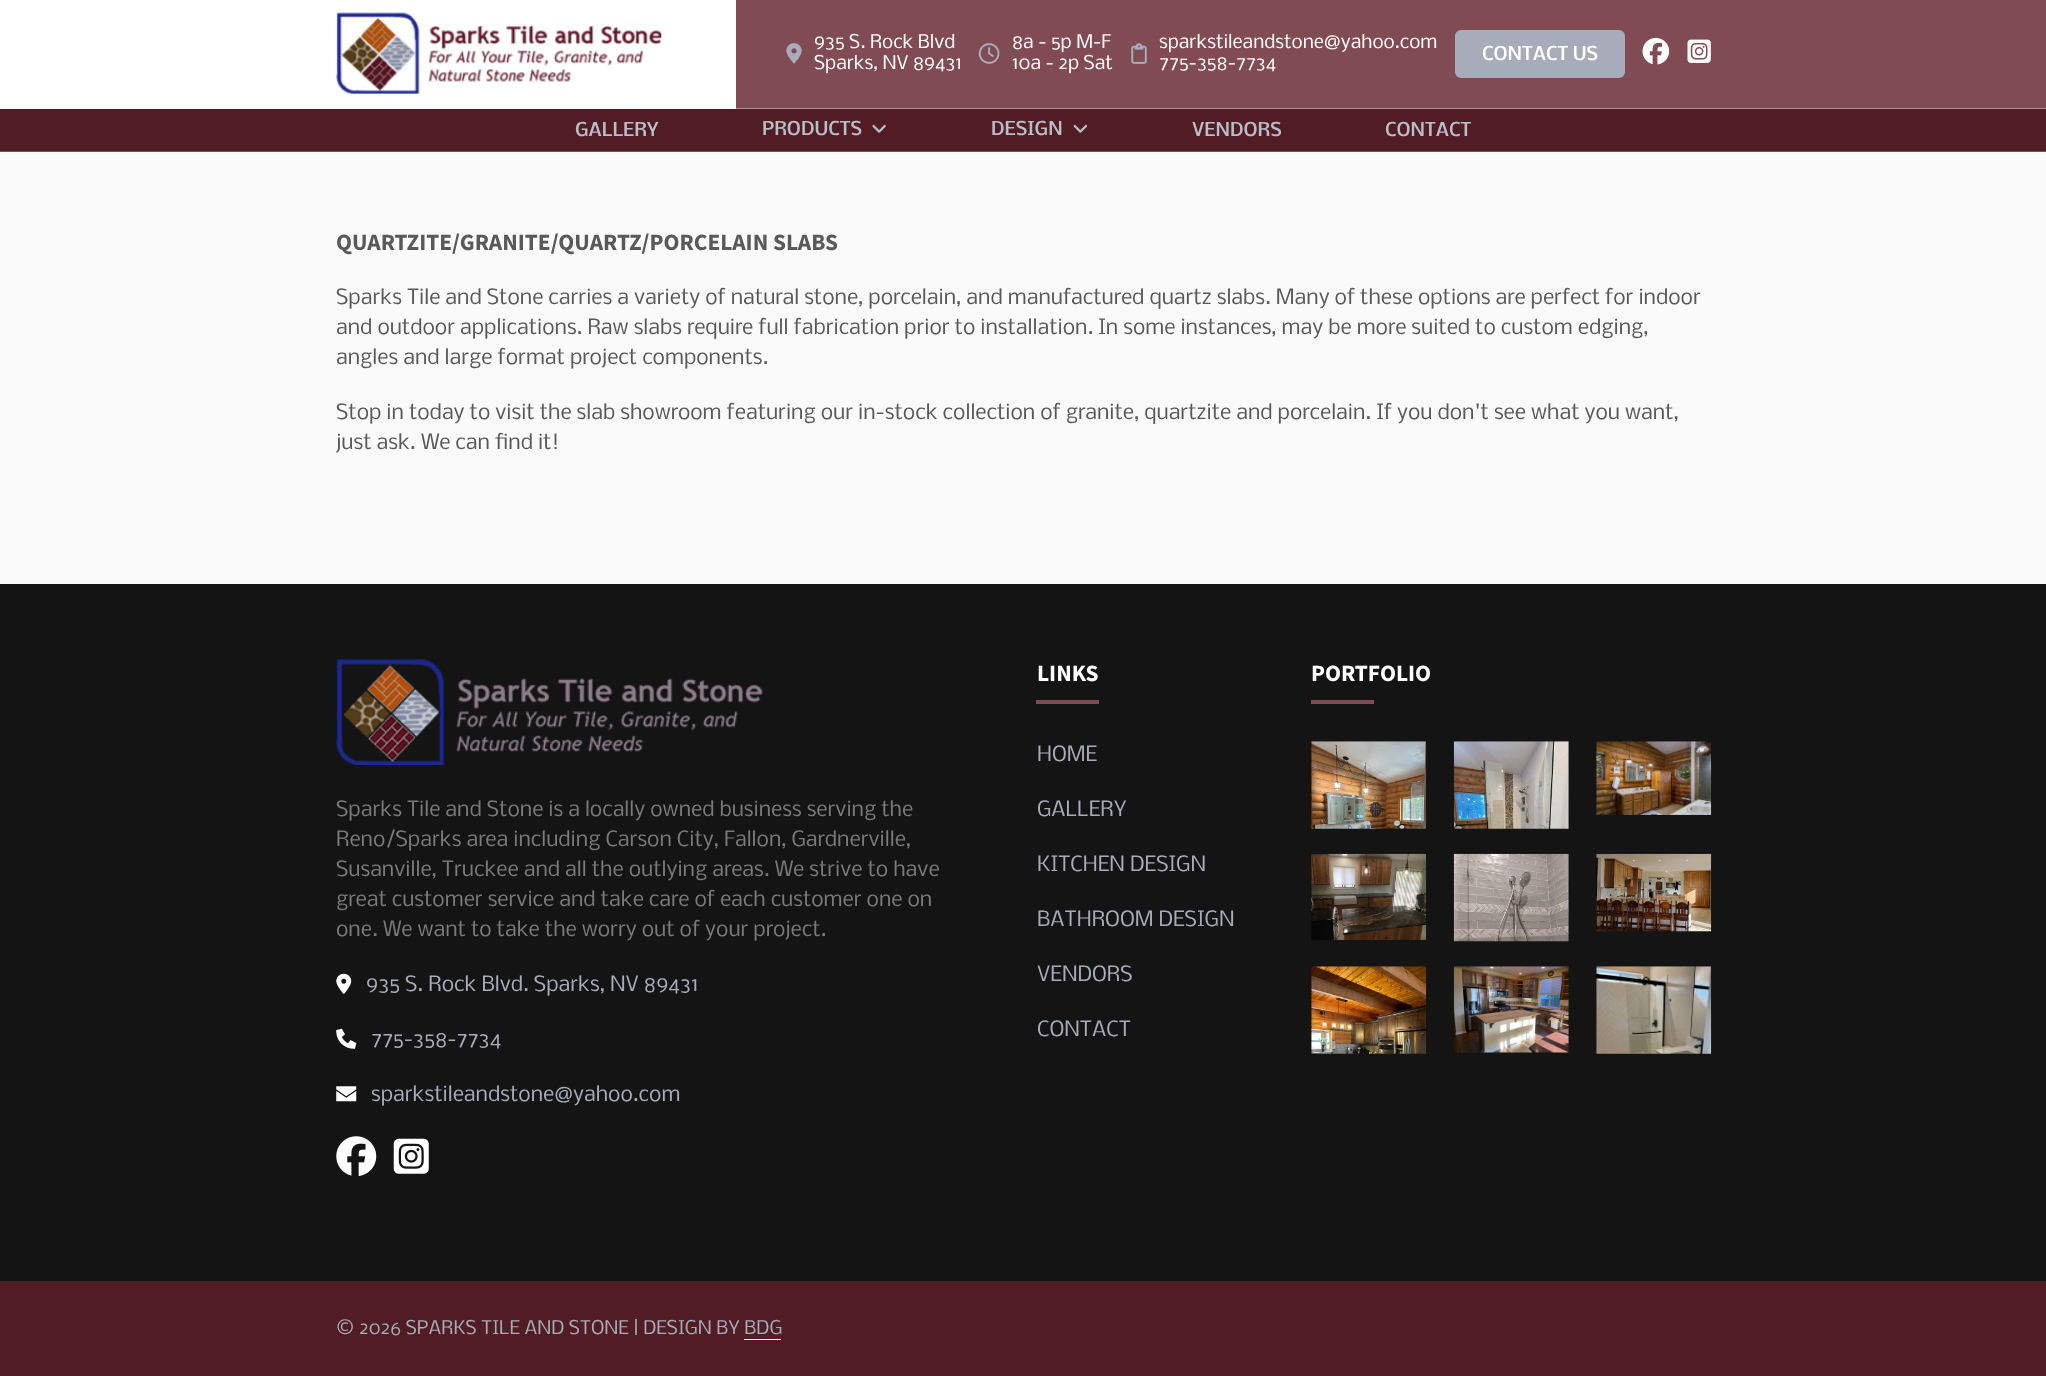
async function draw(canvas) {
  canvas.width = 2046;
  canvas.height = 1376;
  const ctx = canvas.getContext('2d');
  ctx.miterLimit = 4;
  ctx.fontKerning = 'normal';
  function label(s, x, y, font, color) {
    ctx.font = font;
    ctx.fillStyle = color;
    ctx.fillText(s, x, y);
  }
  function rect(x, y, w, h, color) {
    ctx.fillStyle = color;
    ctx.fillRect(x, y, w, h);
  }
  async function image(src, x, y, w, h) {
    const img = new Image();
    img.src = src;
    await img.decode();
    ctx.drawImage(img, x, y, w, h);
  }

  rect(0, 0, 2046, 1376, '#fafafa');
  rect(0, 0, 2046, 153, '#fff');
  rect(0, 151, 2046, 1, '#804b53');
  await image('assets/img1.png', 736, 0, 1310, 109);
  await image('assets/img2.png', 336, 12, 326, 82);
  await image('assets/img3.png', 786, 43, 16, 21);
  label('935 S. Rock Blvd', 814, 48, '18px Nobile', '#fff');
  label('Sparks, NV 89431', 814, 69, '18px Nobile', '#fff');
  await image('assets/img4.png', 978, 43, 22, 21);
  label('8a - 5p M-F', 1012, 48, '18px Nobile', '#fff');
  label('10a - 2p Sat', 1012, 69, '18px Nobile', '#fff');
  await image('assets/img5.png', 1131, 43, 16, 21);
  label('sparkstileandstone@yahoo.com', 1159, 48, '18px Nobile', '#fff');
  label('775-358-7734', 1159, 69, '18px Nobile', '#fff');
  ctx.fillStyle = '#a7abba';
  ctx.beginPath();
  ctx.roundRect(1456.5, 31.5, 167, 45, 4.5);
  ctx.fill();
  ctx.strokeStyle = '#a7abba';
  ctx.lineWidth = 3;
  ctx.stroke();
  label('CONTACT US', 1482, 60, '500 18px Nobile', '#fff');
  await image('assets/img6.png', 1642, 37, 28, 28);
  await image('assets/img7.png', 1687, 39, 24, 24);
  rect(0, 109, 2046, 42, '#521c25');
  label('GALLERY', 575, 136, '500 18px Nobile', '#babec9');
  label('PRODUCTS', 762, 135, '500 18px Nobile', '#babec9');
  await image('assets/img8.png', 872, 124, 14, 9);
  label('DESIGN', 991, 135, '500 18px Nobile', '#babec9');
  await image('assets/img9.png', 1073, 124, 15, 9);
  label('VENDORS', 1192, 136, '500 18px Nobile', '#babec9');
  label('CONTACT', 1385, 136, '500 18px Nobile', '#babec9');
  label('QUARTZITE/GRANITE/QUARTZ/PORCELAIN SLABS', 336, 250, 'bold 23.4px Source Sans Pro', '#595959');
  label('Sparks Tile and Stone carries a variety of natural stone, porcelain, and manufactured quartz slabs. Many of these options are perfect for indoor', 336, 304, '20px Nobile', '#595959');
  label('and outdoor applications. Raw slabs require full fabrication prior to installation. In some instances, may be more suited to custom edging,', 336, 334, '20px Nobile', '#595959');
  label('angles and large format project components.', 336, 364, '20px Nobile', '#595959');
  label('Stop in today to visit the slab showroom featuring our in-stock collection of granite, quartzite and porcelain. If you don\'t see what you want,', 336, 419, '20px Nobile', '#595959');
  label('just ask. We can find it!', 336, 449, '20px Nobile', '#595959');
  rect(0, 584, 2046, 697, '#141414');
  label('LINKS', 1037, 681, 'bold 23.4px Source Sans Pro', '#fff');
  rect(1036, 700, 63, 4, '#804b53');
  label('HOME', 1037, 761, '20px Nobile', '#a7abba');
  label('GALLERY', 1037, 816, '20px Nobile', '#a7abba');
  label('KITCHEN DESIGN', 1037, 871, '20px Nobile', '#a7abba');
  label('BATHROOM DESIGN', 1037, 926, '20px Nobile', '#a7abba');
  label('VENDORS', 1037, 981, '20px Nobile', '#a7abba');
  label('CONTACT', 1037, 1036, '20px Nobile', '#a7abba');
  label('PORTFOLIO', 1311, 681, 'bold 23.4px Source Sans Pro', '#fff');
  rect(1311, 700, 63, 4, '#804b53');
  await image('assets/img10.png', 1311, 741, 116, 88);
  await image('assets/img11.png', 1453, 741, 116, 88);
  await image('assets/img12.png', 1596, 741, 116, 74);
  await image('assets/img13.png', 1311, 853, 116, 87);
  await image('assets/img14.png', 1453, 853, 116, 89);
  await image('assets/img15.png', 1596, 853, 116, 79);
  await image('assets/img16.png', 1311, 966, 116, 88);
  await image('assets/img17.png', 1453, 966, 116, 87);
  await image('assets/img18.png', 1596, 966, 116, 88);
  await image('assets/img19.png', 336, 658, 427, 107);
  label('Sparks Tile and Stone is a locally owned business serving the', 336, 816, '20px Nobile', '#7a7a7a');
  label('Reno/Sparks area including Carson City, Fallon, Gardnerville,', 336, 846, '20px Nobile', '#7a7a7a');
  label('Susanville, Truckee and all the outlying areas. We strive to have', 336, 876, '20px Nobile', '#7a7a7a');
  label('great customer service and take care of each customer one on', 336, 906, '20px Nobile', '#7a7a7a');
  label('one. We want to take the worry out of your project.', 336, 936, '20px Nobile', '#7a7a7a');
  await image('assets/img20.png', 336, 973, 16, 21);
  label('935 S. Rock Blvd. Sparks, NV 89431', 366, 991, '20px Nobile', '#a7abba');
  await image('assets/img21.png', 336, 1028, 21, 21);
  label('775-358-7734', 371, 1046, '20px Nobile', '#a7abba');
  await image('assets/img22.png', 336, 1086, 21, 16);
  label('sparkstileandstone@yahoo.com', 371, 1101, '20px Nobile', '#a7abba');
  await image('assets/img23.png', 336, 1136, 41, 40);
  await image('assets/img24.png', 393, 1138, 36, 36);
  rect(0, 1281, 2046, 95, '#521c25');
  label('© 2026 SPARKS TILE AND STONE | DESIGN BY BDG', 336, 1334, '18px Nobile', '#a7abba');
  rect(744, 1339, 37, 1, '#fff');
}

draw(document.querySelector('canvas'));
